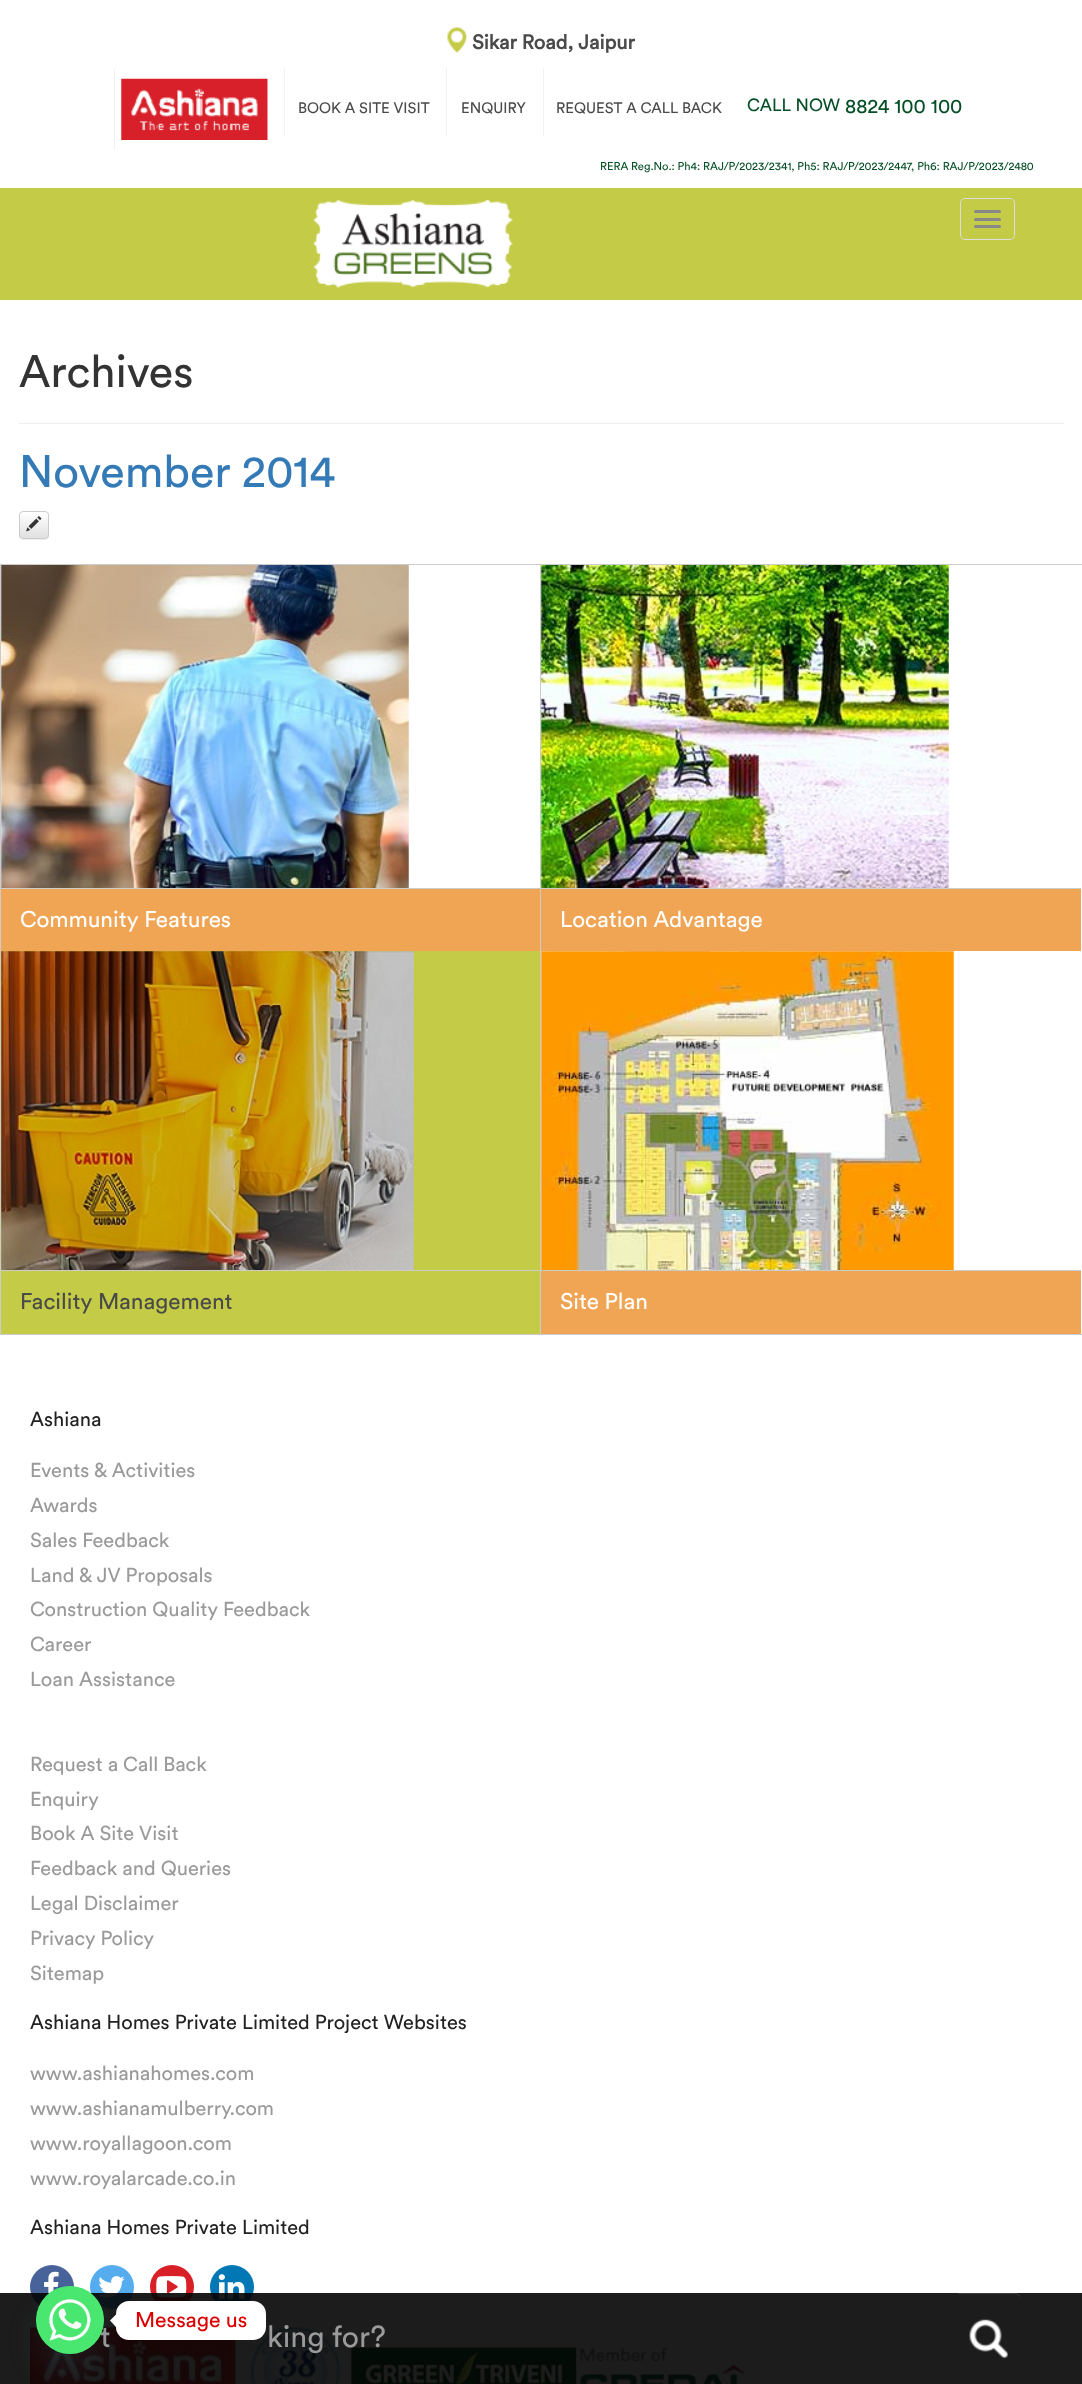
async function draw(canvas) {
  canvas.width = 1082;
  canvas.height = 2384;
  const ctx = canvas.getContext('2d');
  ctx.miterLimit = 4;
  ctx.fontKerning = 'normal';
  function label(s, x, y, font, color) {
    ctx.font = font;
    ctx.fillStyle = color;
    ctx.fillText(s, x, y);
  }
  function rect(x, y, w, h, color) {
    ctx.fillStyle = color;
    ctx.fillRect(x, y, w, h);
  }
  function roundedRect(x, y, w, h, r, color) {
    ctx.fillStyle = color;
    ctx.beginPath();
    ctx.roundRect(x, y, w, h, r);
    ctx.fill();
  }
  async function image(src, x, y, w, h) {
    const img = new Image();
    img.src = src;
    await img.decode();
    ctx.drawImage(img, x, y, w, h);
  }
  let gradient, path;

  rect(0, 0, 1082, 2384, '#fff');
  await image('assets/img1.png', 447, 27, 20, 26);
  label('Sikar Road, Jaipur', 472, 49, 'bold 20px Circular', '#4a4a4a');
  rect(114, 69, 1, 81, '#f2f2f2');
  await image('assets/img2.png', 121, 78, 147, 62);
  rect(284, 68, 1, 68, '#f2f2f2');
  label('BOOK A SITE VISIT', 298, 113, '15px Circular', '#4a4a4a');
  rect(446, 68, 1, 68, '#f2f2f2');
  label('ENQUIRY', 461, 113, '15px Circular', '#4a4a4a');
  rect(543, 68, 1, 68, '#f2f2f2');
  label('REQUEST A CALL BACK', 556, 113, '15px Circular', '#4a4a4a');
  label('CALL NOW', 747, 111, '17.5px Circular', '#054f26');
  label('8824 100 100', 845, 113, '20px Circular', '#054f26');
  label('RERA Reg.No.: Ph4: RAJ/P/2023/2341, Ph5: RAJ/P/2023/2447, Ph6: RAJ/P/2023/2480', 600, 170, '11.25px Circular', '#054f26');
  rect(0, 188, 1082, 112, '#c4cb47');
  await image('assets/img3.png', 313, 200, 200, 88);
  ctx.beginPath();
  ctx.roundRect(960.5, 198.5, 54, 41, 4.5);
  ctx.strokeStyle = '#ddd';
  ctx.stroke();
  roundedRect(974, 210, 27, 3, 1.5, '#888');
  roundedRect(974, 218, 27, 3, 1.5, '#888');
  roundedRect(974, 225, 27, 3, 1.5, '#888');
  rect(19, 423, 1045, 1, '#eee');
  label('Archives', 19, 387, '45px Circular', '#333');
  label('November 2014', 19, 487, '45px Circular', '#337ab7');
  ctx.fillStyle = '#00000012';
  ctx.filter = 'blur(0.5px)';
  ctx.beginPath();
  ctx.roundRect(19, 513, 30, 27, 4);
  ctx.fill();
  ctx.filter = 'none';
  roundedRect(19, 511, 30, 28, 4, '#fff');
  ctx.save();
  ctx.beginPath();
  ctx.roundRect(19, 511, 30, 28, 4);
  ctx.clip();
  gradient = ctx.createLinearGradient(34, 513, 34, 538);
  gradient.addColorStop(0, '#fff');
  gradient.addColorStop(1, '#e0e0e0');
  ctx.fillStyle = gradient;
  ctx.fillRect(19, 513, 30, 25);
  ctx.restore();
  ctx.beginPath();
  ctx.roundRect(19.5, 511.5, 29, 27, 3.5);
  ctx.strokeStyle = '#ccc';
  ctx.stroke();
  await image('assets/img4.png', 26, 516, 16, 16);
  ctx.strokeRect(0.5, 564.5, 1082, 770);
  rect(540, 565, 1, 769, '#ccc');
  await image('assets/img5.png', 1, 565, 408, 323);
  rect(1, 889, 539, 62, '#f0a554');
  rect(1, 888, 539, 1, '#ccc');
  label('Community Features', 20, 927, '22.5px Circular', '#fff');
  await image('assets/img6.png', 541, 565, 408, 387);
  rect(541, 889, 540, 62, '#f0a554');
  rect(541, 888, 540, 1, '#ccc');
  label('Location Advantage', 560, 927, '22.5px Circular', '#fff');
  rect(1, 951, 539, 319, '#c4cb47');
  await image('assets/img7.png', 1, 951, 413, 319);
  rect(1, 1271, 539, 63, '#c4cb47');
  rect(1, 1270, 539, 1, '#ccc');
  label('Facility Management', 20, 1309, '22.5px Circular', '#4a4a4a');
  await image('assets/img8.png', 541, 951, 413, 319);
  rect(541, 1271, 540, 63, '#f0a554');
  rect(541, 1270, 540, 1, '#ccc');
  label('Site Plan', 560, 1309, '22.5px Circular', '#fff');
  label('Ashiana', 30, 1426, '20px Circular', '#222');
  label('Events & Activities', 30, 1477, '20px Circular', '#9a9a9a');
  label('Awards', 30, 1512, '20px Circular', '#9a9a9a');
  label('Sales Feedback', 30, 1547, '20px Circular', '#9a9a9a');
  label('Land & JV Proposals', 30, 1582, '20px Circular', '#9a9a9a');
  label('Construction Quality Feedback', 30, 1616, '20px Circular', '#9a9a9a');
  label('Career', 30, 1651, '20px Circular', '#9a9a9a');
  label('Loan Assistance', 30, 1686, '20px Circular', '#9a9a9a');
  label('Request a Call Back', 30, 1771, '20px Circular', '#9a9a9a');
  label('Enquiry', 30, 1806, '20px Circular', '#9a9a9a');
  label('Book A Site Visit', 30, 1840, '20px Circular', '#9a9a9a');
  label('Feedback and Queries', 30, 1875, '20px Circular', '#9a9a9a');
  label('Legal Disclaimer', 30, 1910, '20px Circular', '#9a9a9a');
  label('Privacy Policy', 30, 1945, '20px Circular', '#9a9a9a');
  label('Sitemap', 30, 1980, '20px Circular', '#9a9a9a');
  label('Ashiana Homes Private Limited Project Websites', 30, 2029, '20px Circular', '#222');
  label('www.ashianahomes.com', 30, 2080, '20px Circular', '#9a9a9a');
  label('www.ashianamulberry.com', 30, 2115, '20px Circular', '#9a9a9a');
  label('www.royallagoon.com', 30, 2150, '20px Circular', '#9a9a9a');
  label('www.royalarcade.co.in', 30, 2185, '20px Circular', '#9a9a9a');
  label('Ashiana Homes Private Limited', 30, 2234, '20px Circular', '#222');
  ctx.fillStyle = '#476399';
  ctx.beginPath();
  ctx.arc(52, 2287, 22, 0, 2 * Math.PI);
  ctx.fill();
  await image('assets/img9.png', 44, 2271, 15, 24);
  ctx.fillStyle = '#55acee';
  ctx.beginPath();
  ctx.arc(112, 2287, 22, 0, 2 * Math.PI);
  ctx.fill();
  await image('assets/img10.png', 98, 2276, 27, 22);
  ctx.fillStyle = '#d92028';
  ctx.beginPath();
  ctx.arc(172, 2287, 22, 0, 2 * Math.PI);
  ctx.fill();
  await image('assets/img11.png', 156, 2276, 31, 22);
  ctx.fillStyle = '#0177b5';
  ctx.beginPath();
  ctx.arc(232, 2287, 22, 0, 2 * Math.PI);
  ctx.fill();
  await image('assets/img12.png', 218, 2274, 27, 25);
  await image('assets/img13.png', 30, 2327, 318, 57);
  await image('assets/img14.png', 351, 2347, 226, 37);
  await image('assets/img15.png', 580, 2347, 165, 37);
  rect(0, 2293, 1082, 91, '#030303e6');
  label('t', 100, 2347, '30px Circular', '#9a9a9a');
  label('king for?', 267, 2347, '30px Circular', '#9a9a9a');
  await image('assets/img16.png', 969, 2319, 39, 40);
  ctx.fillStyle = '#3d3d3d';
  path = new Path2D('M958 2294H1015C1018 2294 1020 2296 1020 2299V2298C1020 2295 1018 2293 1015 2293H958Z');
  ctx.fill(path);
  ctx.fillStyle = '#49687e29';
  ctx.filter = 'blur(15px)';
  ctx.beginPath();
  ctx.roundRect(36, 2306, 68, 68, 34);
  ctx.fill();
  ctx.filter = 'none';
  ctx.fillStyle = '#49e670';
  ctx.beginPath();
  ctx.arc(70, 2320, 34, 0, 2 * Math.PI);
  ctx.fill();
  await image('assets/img17.png', 36, 2286, 68, 68);
  roundedRect(116, 2301, 150, 39, 13, '#fff');
  path = new Path2D('M116 2314.5V2327L110 2320.5Z');
  ctx.fill(path);
  label('Message us', 135, 2327, '21.25px Circular', '#d00');
}

draw(document.querySelector('canvas'));
